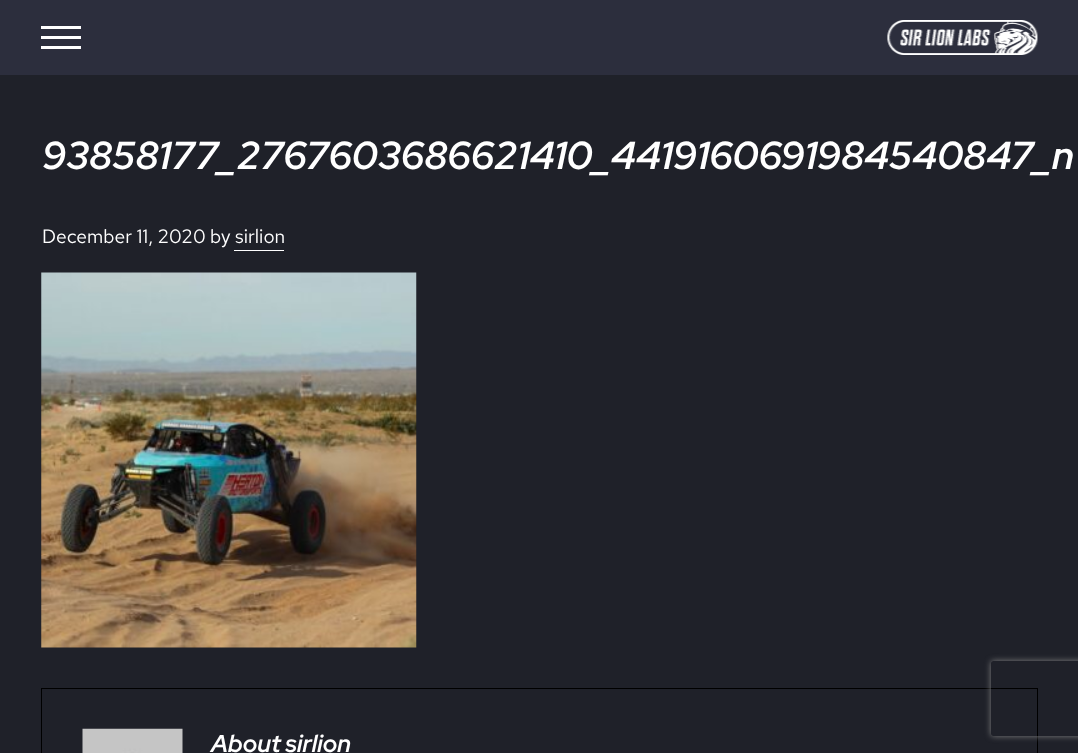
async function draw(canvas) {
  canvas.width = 1078;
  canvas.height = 753;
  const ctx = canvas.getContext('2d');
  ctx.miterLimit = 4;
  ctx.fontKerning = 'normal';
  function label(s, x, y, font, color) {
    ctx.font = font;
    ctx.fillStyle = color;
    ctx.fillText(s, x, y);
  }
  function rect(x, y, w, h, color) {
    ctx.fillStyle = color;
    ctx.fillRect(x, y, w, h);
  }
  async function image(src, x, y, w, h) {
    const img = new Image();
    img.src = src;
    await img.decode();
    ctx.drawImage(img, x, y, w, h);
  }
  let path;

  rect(0, 0, 1078, 753, '#1f2129');
  rect(0, 0, 1078, 75, '#2c2e3d');
  rect(41, 36, 40, 3, '#fff');
  rect(41, 26, 40, 3, '#fff');
  rect(41, 46, 40, 3, '#fff');
  await image('assets/img1.png', 887, 20, 151, 35);
  label('93858177_2767603686621410_4419160691984540847_n', 42, 169, 'italic bold 38.95px Red Hat Display', '#fff');
  label('December 11, 2020 by sirlion', 42, 243, '19.25px Red Hat Text', '#fff');
  rect(234, 250, 50, 1, '#fff');
  await image('assets/img2.png', 41, 272, 376, 376);
  ctx.strokeStyle = '#000';
  ctx.strokeRect(41.5, 688.5, 996, 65);
  await image('assets/img3.png', 82, 728, 101, 25);
  label('About sirlion', 211, 752, 'italic bold 24.25px Red Hat Display', '#fff');
  ctx.save();
  path = new Path2D('M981 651H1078V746H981ZM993.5 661H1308.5C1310 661 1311 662 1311 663.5V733.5C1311 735 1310 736 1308.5 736H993.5C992 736 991 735 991 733.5V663.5C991 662 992 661 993.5 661Z');
  ctx.clip(path, 'evenodd');
  ctx.fillStyle = '#808080';
  ctx.filter = 'blur(3px)';
  ctx.beginPath();
  ctx.roundRect(991, 661, 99, 75, 2.5);
  ctx.fill();
  ctx.filter = 'none';
  ctx.restore();
}

draw(document.querySelector('canvas'));
